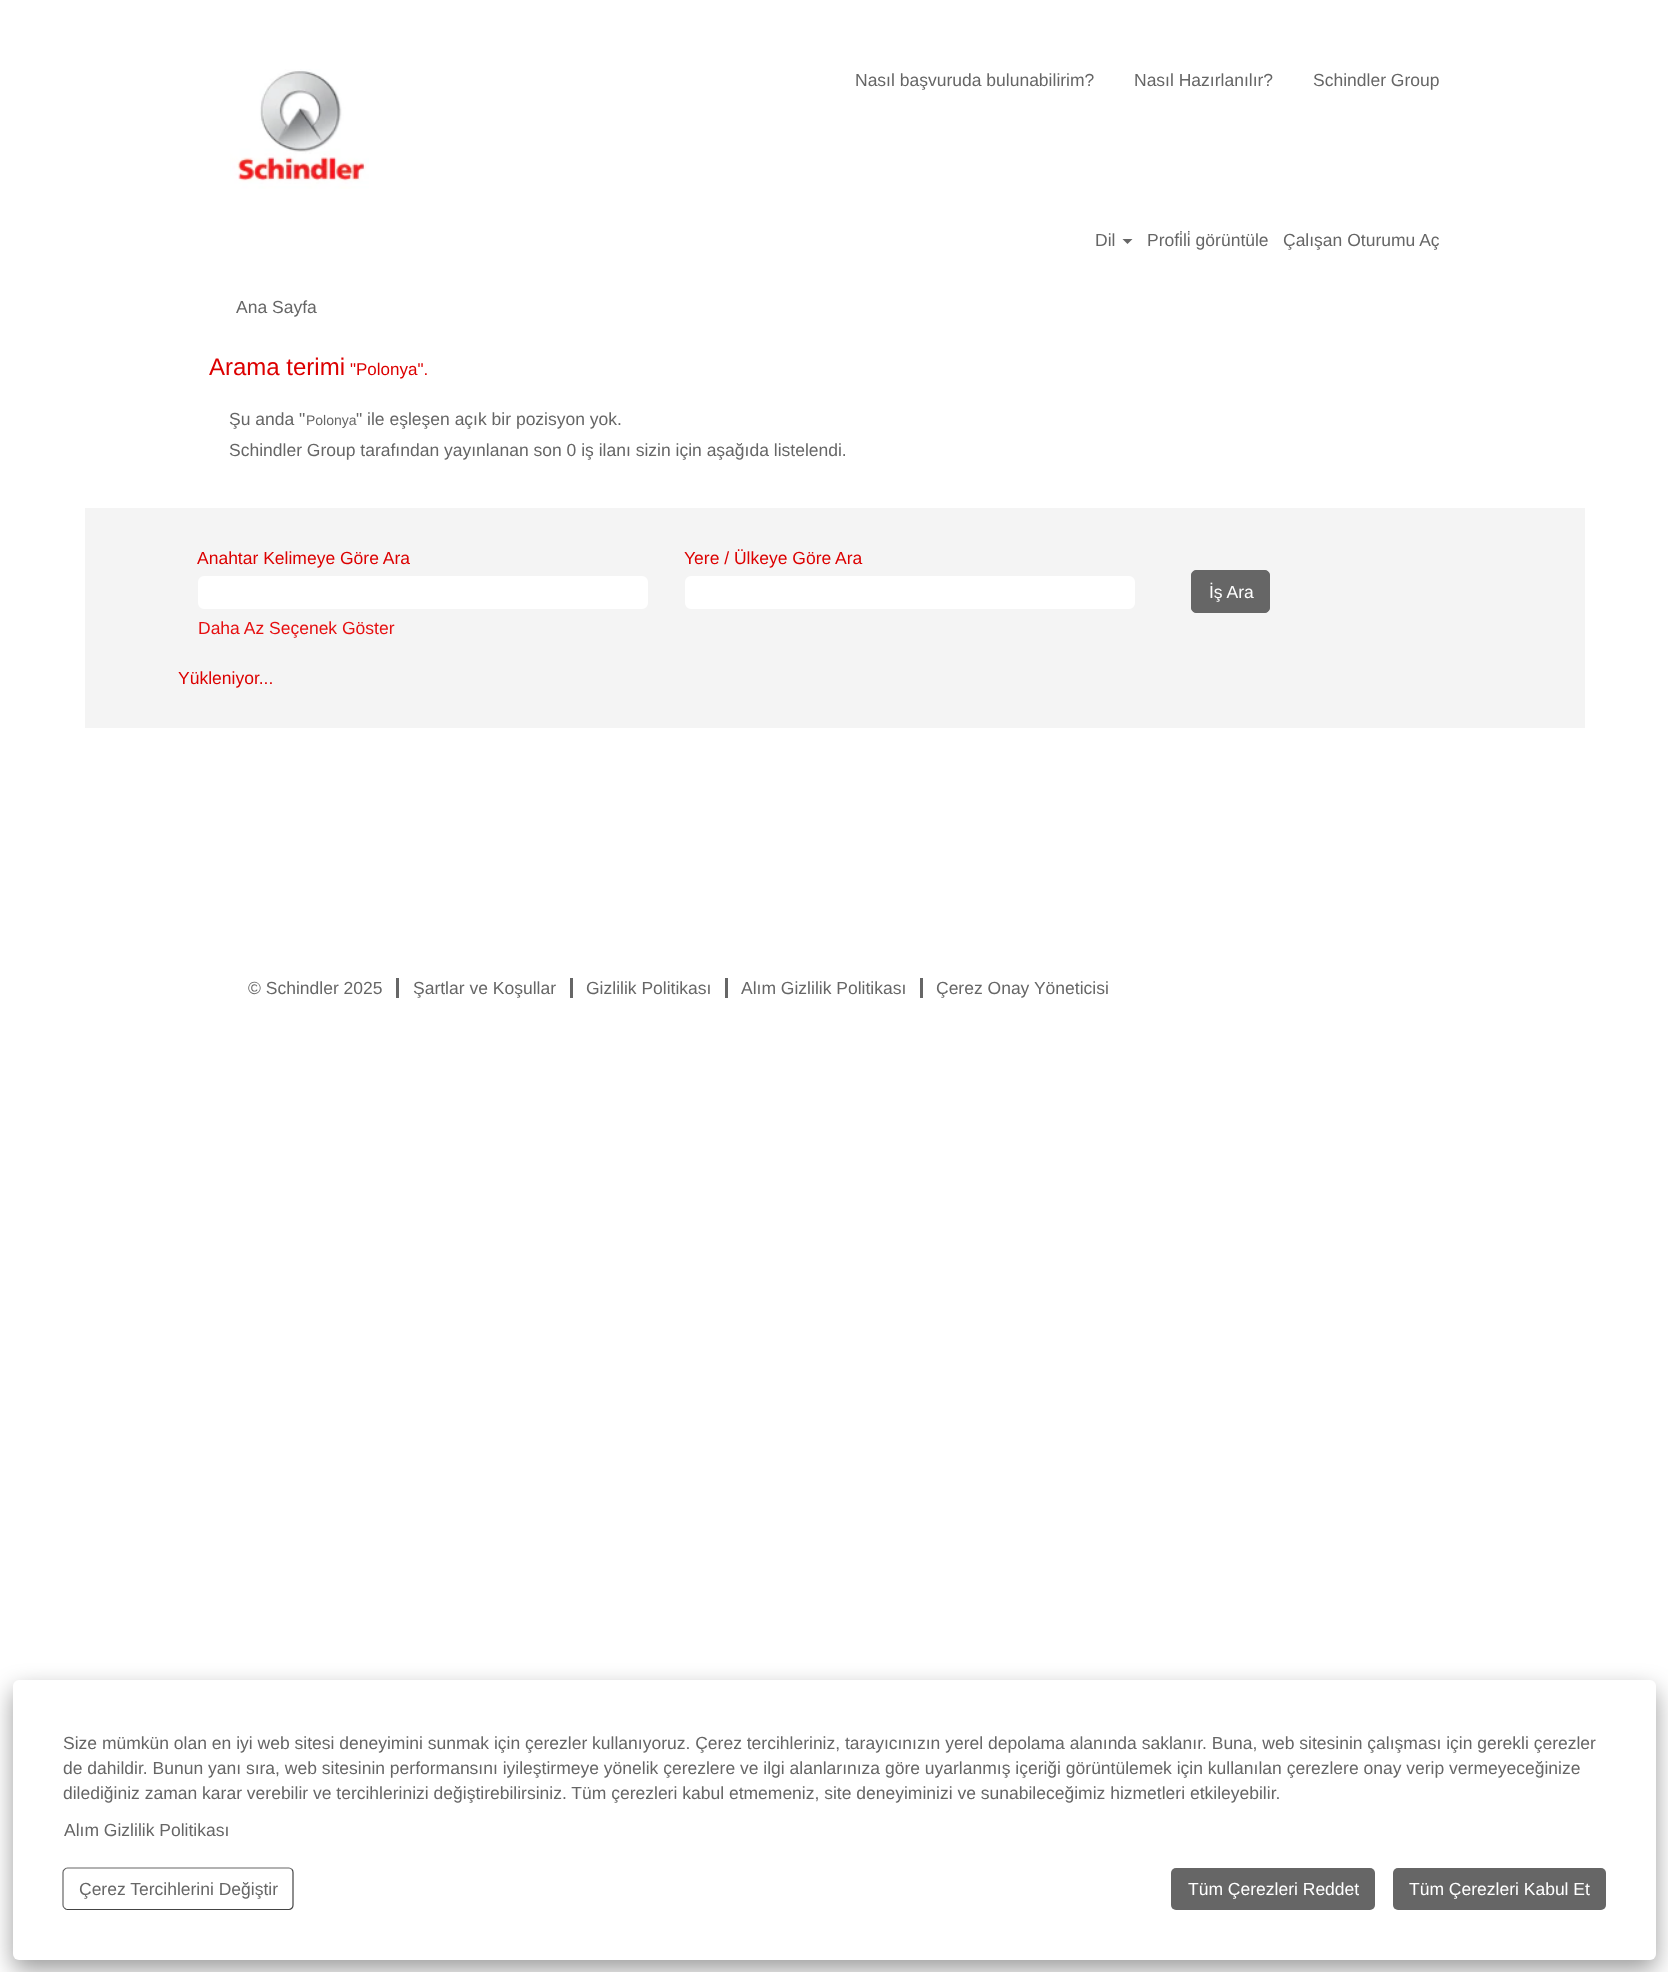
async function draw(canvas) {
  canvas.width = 1668;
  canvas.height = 1972;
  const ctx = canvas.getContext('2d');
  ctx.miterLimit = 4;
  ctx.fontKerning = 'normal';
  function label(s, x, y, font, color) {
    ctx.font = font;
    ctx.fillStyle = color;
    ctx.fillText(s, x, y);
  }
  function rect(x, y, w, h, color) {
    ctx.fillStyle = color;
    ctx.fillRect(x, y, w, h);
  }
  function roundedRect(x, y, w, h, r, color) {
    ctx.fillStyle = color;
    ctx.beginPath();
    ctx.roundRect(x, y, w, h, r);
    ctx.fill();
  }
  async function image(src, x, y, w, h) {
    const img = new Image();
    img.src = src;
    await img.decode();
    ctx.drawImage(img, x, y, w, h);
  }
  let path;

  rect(0, 0, 1668, 1972, '#fff');
  await image('assets/img1.png', 230, 69, 139, 120);
  label('Nasıl başvuruda bulunabilirim?', 855, 86, '17.5px Liberation Sans', '#666');
  label('Nasıl Hazırlanılır?', 1134, 86, '17.5px Liberation Sans', '#666');
  label('Schindler Group', 1313, 86, '17.5px Liberation Sans', '#666');
  label('Dil', 1095, 246, '17.5px Liberation Sans', '#666');
  path = new Path2D('M1122.5 239H1132.5L1127.5 244Z');
  ctx.fill(path);
  label('Profi̇li̇ görüntüle', 1147, 246, '17.5px Liberation Sans', '#666');
  label('Çalışan Oturumu Aç', 1283, 246, '17.5px Liberation Sans', '#666');
  label('Ana Sayfa', 236, 313, '17.5px Liberation Sans', '#666');
  label('Arama terimi', 209, 375, '24px Liberation Sans', '#dc0000');
  label('"Polonya".', 350, 375, '17px Liberation Sans', '#dc0000');
  label('Şu anda "', 229, 425, '17.5px Liberation Sans', '#666');
  label('Polonya', 306, 425, '14px Liberation Sans', '#666');
  label('" ile eşleşen açık bir pozisyon yok.', 356, 425, '17.5px Liberation Sans', '#666');
  label('Schindler Group tarafından yayınlanan son 0 iş ilanı sizin için aşağıda listelendi.', 229, 456, '17.5px Liberation Sans', '#666');
  rect(85, 508, 1500, 220, '#f4f4f4');
  label('Anahtar Kelimeye Göre Ara', 197, 564, '17.5px Liberation Sans', '#dc0000');
  ctx.fillStyle = '#fff';
  ctx.beginPath();
  ctx.roundRect(199.5, 577.5, 447, 30, 4.5);
  ctx.fill();
  ctx.strokeStyle = '#fff';
  ctx.lineWidth = 3;
  ctx.stroke();
  label('Yere / Ülkeye Göre Ara', 684, 564, '17.5px Liberation Sans', '#dc0000');
  ctx.fillStyle = '#fff';
  ctx.beginPath();
  ctx.roundRect(686.5, 577.5, 447, 30, 4.5);
  ctx.fill();
  ctx.stroke();
  label('Daha Az Seçenek Göster', 198, 634, '17.5px Liberation Sans', '#e60f10');
  label('Yükleniyor...', 178, 684, '17.5px Liberation Sans', '#dc0000');
  ctx.fillStyle = '#666';
  ctx.beginPath();
  ctx.roundRect(1191.5, 570.5, 78, 42, 4.5);
  ctx.fill();
  ctx.strokeStyle = '#666';
  ctx.lineWidth = 1;
  ctx.stroke();
  label('İş Ara', 1209, 598, '17.5px Liberation Sans', '#fff');
  rect(396, 978, 3, 20, '#666');
  label('© Schindler 2025', 248, 994, '17.5px Liberation Sans', '#666');
  rect(570, 978, 3, 20, '#666');
  label('Şartlar ve Koşullar', 413, 994, '17.5px Liberation Sans', '#666');
  rect(725, 978, 3, 20, '#666');
  label('Gizlilik Politikası', 586, 994, '17.5px Liberation Sans', '#666');
  rect(920, 978, 3, 20, '#666');
  label('Alım Gizlilik Politikası', 741, 994, '17.5px Liberation Sans', '#666');
  label('Çerez Onay Yöneticisi', 936, 994, '17.5px Liberation Sans', '#666');
  ctx.fillStyle = '#00000063';
  ctx.filter = 'blur(12.5px)';
  ctx.beginPath();
  ctx.roundRect(13, 1690, 1643, 280, 6);
  ctx.fill();
  ctx.filter = 'none';
  roundedRect(13, 1680, 1643, 280, 6, '#fff');
  label('Size mümkün olan en iyi web sitesi deneyimini sunmak için çerezler kullanıyoruz. Çerez tercihleriniz, tarayıcınızın yerel depolama alanında saklanır. Buna, web sitesinin çalışması için gerekli çerezler', 63, 1749, '17.5px Liberation Sans', '#666');
  label('de dahildir. Bunun yanı sıra, web sitesinin performansını iyileştirmeye yönelik çerezlere ve ilgi alanlarınıza göre uyarlanmış içeriği görüntülemek için kullanılan çerezlere onay verip vermeyeceğinize', 63, 1774, '17.5px Liberation Sans', '#666');
  label('dilediğiniz zaman karar verebilir ve tercihlerinizi değiştirebilirsiniz. Tüm çerezleri kabul etmemeniz, site deneyiminizi ve sunabileceğimiz hizmetleri etkileyebilir.', 63, 1799, '17.5px Liberation Sans', '#666');
  label('Alım Gizlilik Politikası', 64, 1836, '17.5px Liberation Sans', '#666');
  path = new Path2D('M292 1869.5C292.5 1870 293 1871.5 293 1872.5V1905C293 1906 292.5 1907.5 292 1908C291 1909 290 1909.5 289 1909.5H67.5C66.5 1909.5 65 1909 64.5 1908');
  ctx.strokeStyle = '#444';
  ctx.lineWidth = 1.2;
  ctx.stroke(path);
  path = new Path2D('M64.5 1908C63.5 1907.5 63 1906 63 1905V1872.5C63 1871.5 63.5 1870 64.5 1869.5C65 1868.5 66.5 1868 67.5 1868H289C290 1868 291 1868.5 292 1869.5');
  ctx.strokeStyle = '#666';
  ctx.stroke(path);
  label('Çerez Tercihlerini Değiştir', 79, 1895, '17.5px Liberation Sans', '#666');
  roundedRect(1171, 1868, 204, 42, 5, '#666');
  label('Tüm Çerezleri Reddet', 1188, 1895, '17.5px Liberation Sans', '#fff');
  roundedRect(1393, 1868, 213, 42, 5, '#666');
  label('Tüm Çerezleri Kabul Et', 1409, 1895, '17.5px Liberation Sans', '#fff');
}

draw(document.querySelector('canvas'));
